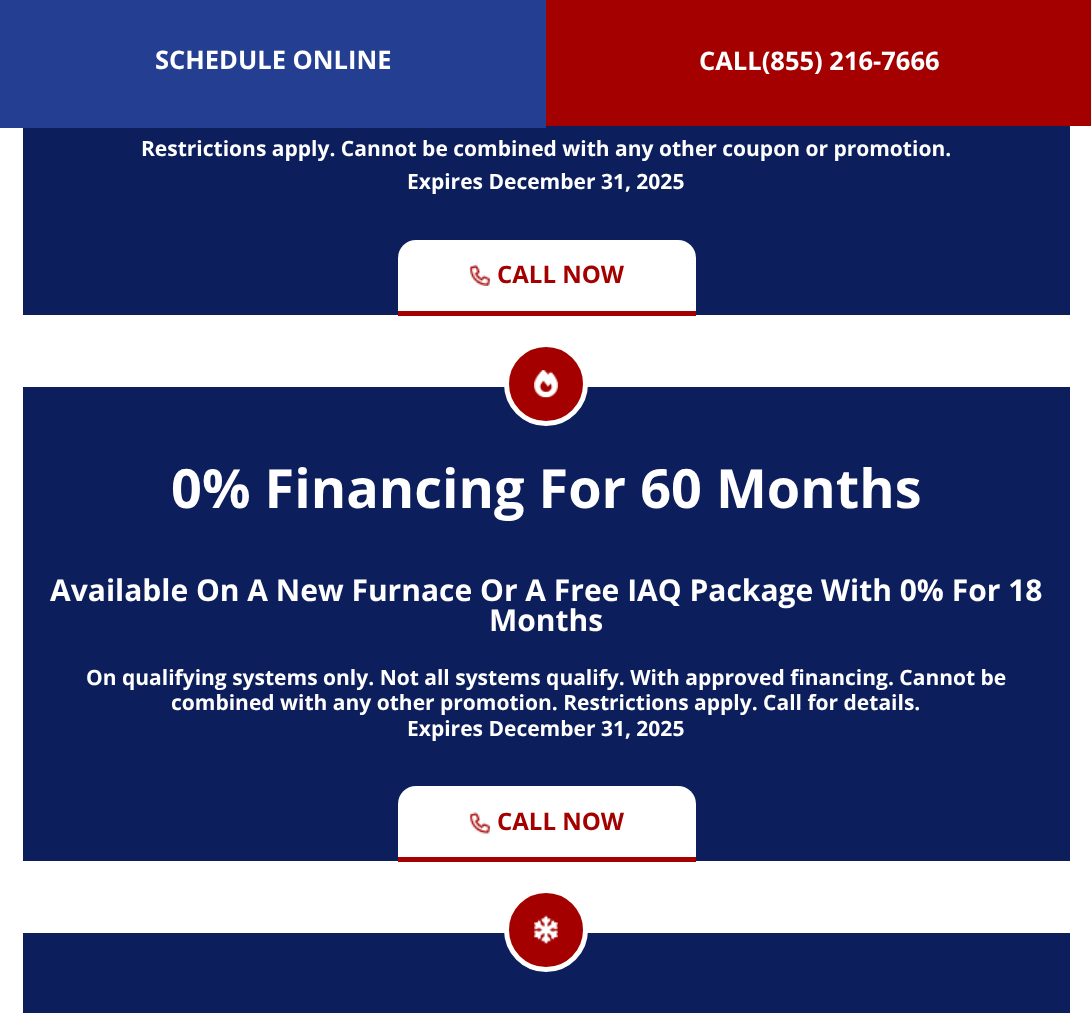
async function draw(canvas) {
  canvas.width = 1091;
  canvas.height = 1013;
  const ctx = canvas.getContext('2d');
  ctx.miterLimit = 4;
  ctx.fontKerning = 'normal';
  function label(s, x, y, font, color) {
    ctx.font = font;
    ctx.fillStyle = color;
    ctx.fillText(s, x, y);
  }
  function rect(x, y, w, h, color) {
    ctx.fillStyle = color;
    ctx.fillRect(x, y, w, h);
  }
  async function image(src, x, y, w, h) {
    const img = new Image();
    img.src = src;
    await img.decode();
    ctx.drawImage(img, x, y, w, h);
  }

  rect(0, 0, 1091, 1013, '#fff');
  rect(23, 126, 1047, 189, '#0c1e5c');
  rect(0, 0, 546, 128, '#243e91');
  label('SCHEDULE ONLINE', 155, 69, 'bold 25.5px Open Sans', '#fff');
  rect(546, 0, 545, 126, '#a40000');
  label('CALL(855) 216-7666', 699, 70, 'bold 25.5px Open Sans', '#fff');
  label('Restrictions apply. Cannot be combined with any other coupon or promotion.', 141, 156, 'bold 21px Open Sans', '#fff');
  label('Expires December 31, 2025', 407, 189, 'bold 21px Open Sans', '#fff');
  ctx.beginPath();
  ctx.roundRect(398, 240, 298, 75, [18, 18, 0, 0]);
  ctx.fill();
  rect(398, 311, 298, 5, '#a40000');
  await image('assets/img1.png', 469, 265, 22, 21);
  label('CALL NOW', 497, 283, 'bold 24px Open Sans', '#a40000');
  rect(23, 387, 1047, 474, '#0c1e5c');
  ctx.fillStyle = '#a40000';
  ctx.beginPath();
  ctx.arc(546, 384, 39.5, 0, 2 * Math.PI);
  ctx.fill();
  ctx.strokeStyle = '#fff';
  ctx.lineWidth = 5;
  ctx.stroke();
  await image('assets/img2.png', 534, 370, 24, 28);
  label('0% Financing For 60 Months', 171, 508, 'bold 54px Open Sans', '#fff');
  label('Available On A New Furnace Or A Free IAQ Package With 0% For 18', 50, 601, 'bold 30px Open Sans', '#fff');
  label('Months', 489, 631, 'bold 30px Open Sans', '#fff');
  label('On qualifying systems only. Not all systems qualify. With approved financing. Cannot be', 86, 685, 'bold 21px Open Sans', '#fff');
  label('combined with any other promotion. Restrictions apply. Call for details.', 171, 710, 'bold 21px Open Sans', '#fff');
  label('Expires December 31, 2025', 407, 736, 'bold 21px Open Sans', '#fff');
  ctx.beginPath();
  ctx.roundRect(398, 786, 298, 75, [18, 18, 0, 0]);
  ctx.fill();
  rect(398, 857, 298, 5, '#a40000');
  await image('assets/img3.png', 469, 812, 22, 22);
  label('CALL NOW', 497, 830, 'bold 24px Open Sans', '#a40000');
  rect(23, 933, 1047, 80, '#0c1e5c');
  ctx.fillStyle = '#a40000';
  ctx.beginPath();
  ctx.arc(546, 930, 39.5, 0, 2 * Math.PI);
  ctx.fill();
  ctx.stroke();
  await image('assets/img4.png', 534, 915, 24, 29);
}

draw(document.querySelector('canvas'));
